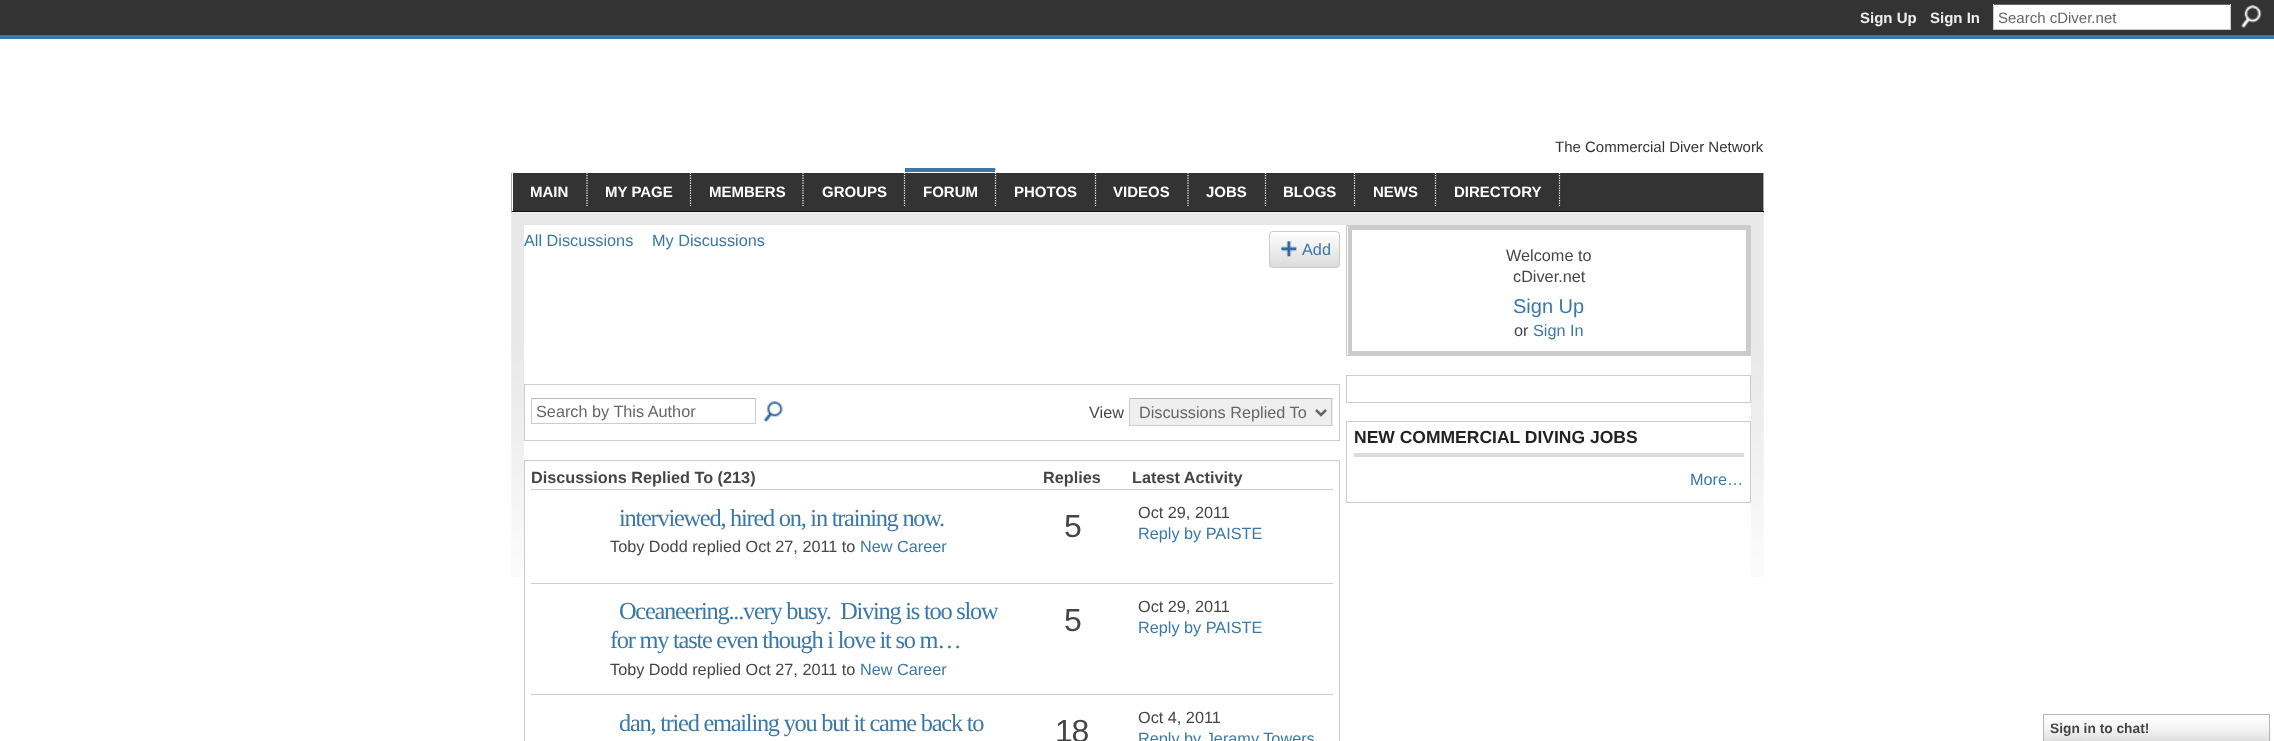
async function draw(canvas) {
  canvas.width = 2274;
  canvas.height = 741;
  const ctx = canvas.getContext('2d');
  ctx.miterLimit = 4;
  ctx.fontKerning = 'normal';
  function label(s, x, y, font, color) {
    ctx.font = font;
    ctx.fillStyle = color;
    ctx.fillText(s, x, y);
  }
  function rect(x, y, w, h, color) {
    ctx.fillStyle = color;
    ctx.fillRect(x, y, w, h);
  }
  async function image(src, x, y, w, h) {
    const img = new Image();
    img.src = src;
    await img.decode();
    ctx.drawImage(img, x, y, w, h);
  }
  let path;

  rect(0, 0, 2274, 741, '#fff');
  rect(0, 0, 2274, 35, '#333');
  label('Sign Up', 1860, 23, 'bold 15px Liberation Sans', '#eee');
  label('Sign In', 1930, 23, 'bold 15px Liberation Sans', '#eee');
  rect(1994, 5, 236, 24, '#fff');
  rect(1993, 4, 238, 1, '#666');
  rect(2230, 4, 1, 26, '#ccc');
  rect(1993, 29, 238, 1, '#ccc');
  rect(1993, 4, 1, 26, '#ccc');
  label('Search cDiver.net', 1998, 23, '15px Liberation Sans', '#666');
  await image('assets/img1.png', 2241, 5, 21, 23);
  rect(0, 35, 2274, 4, '#3c78a7');
  label('The Commercial Diver Network', 1555, 152, '15px Liberation Sans', '#333');
  rect(513, 173, 1250, 38, '#333');
  rect(1763, 173, 1, 40, '#aaa');
  rect(511, 211, 1253, 1, '#111');
  rect(511, 173, 1, 40, '#aaa');
  path = new Path2D('M587 167.5V206');
  ctx.strokeStyle = '#fff';
  ctx.lineWidth = 1.2;
  ctx.setLineDash([1.25, 1.25]);
  ctx.stroke(path);
  label('MAIN', 530, 197, 'bold 15px Liberation Sans', '#fff');
  path = new Path2D('M690.5 167.5V206');
  ctx.stroke(path);
  label('MY PAGE', 605, 197, 'bold 15px Liberation Sans', '#fff');
  path = new Path2D('M803 167.5V206');
  ctx.stroke(path);
  label('MEMBERS', 709, 197, 'bold 15px Liberation Sans', '#fff');
  path = new Path2D('M904.5 167.5V206');
  ctx.stroke(path);
  label('GROUPS', 822, 197, 'bold 15px Liberation Sans', '#fff');
  ctx.fillStyle = '#3c78a7';
  path = new Path2D('M905 168H996L995 172H905Z');
  ctx.fill(path);
  path = new Path2D('M995.5 167.5V206');
  ctx.stroke(path);
  label('FORUM', 923, 197, 'bold 15px Liberation Sans', '#fff');
  path = new Path2D('M1095.5 167.5V206');
  ctx.stroke(path);
  label('PHOTOS', 1014, 197, 'bold 15px Liberation Sans', '#fff');
  path = new Path2D('M1188 167.5V206');
  ctx.stroke(path);
  label('VIDEOS', 1113, 197, 'bold 15px Liberation Sans', '#fff');
  path = new Path2D('M1265.5 167.5V206');
  ctx.stroke(path);
  label('JOBS', 1206, 197, 'bold 15px Liberation Sans', '#fff');
  path = new Path2D('M1354.5 167.5V206');
  ctx.stroke(path);
  label('BLOGS', 1283, 197, 'bold 15px Liberation Sans', '#fff');
  path = new Path2D('M1435.5 167.5V206');
  ctx.stroke(path);
  label('NEWS', 1373, 197, 'bold 15px Liberation Sans', '#fff');
  path = new Path2D('M1559.5 167.5V206');
  ctx.stroke(path);
  label('DIRECTORY', 1454, 197, 'bold 15px Liberation Sans', '#fff');
  await image('assets/img2.png', 511, 212, 1253, 365);
  rect(524, 225, 1227, 352, '#fff');
  label('All Discussions', 524, 246, '16.25px Liberation Sans', '#3c78a7');
  label('My Discussions', 652, 246, '16.25px Liberation Sans', '#3c78a7');
  await image('assets/img3.png', 1269, 234, 71, 34);
  ctx.beginPath();
  ctx.roundRect(1269.5, 231.5, 70, 36, 3.5);
  ctx.strokeStyle = '#cbcbcb';
  ctx.lineWidth = 1;
  ctx.setLineDash([]);
  ctx.stroke();
  await image('assets/img4.png', 1281, 241, 16, 16);
  label('Add', 1302, 255, '16.25px Liberation Sans', '#3c78a7');
  ctx.strokeStyle = '#ccc';
  ctx.strokeRect(524.5, 384.5, 815, 56);
  rect(531, 398, 225, 1, '#bbb');
  rect(755, 398, 1, 26, '#ccc');
  rect(531, 423, 225, 1, '#ccc');
  rect(531, 398, 1, 26, '#ccc');
  label('Search by This Author', 536, 417, '16.25px Liberation Sans', '#666');
  await image('assets/img5.png', 763, 401, 20, 21);
  label('View', 1089, 418, '16.25px Liberation Sans', '#454545');
  rect(1130, 399, 203, 26, '#efefef');
  rect(1129, 398, 204, 1, '#bbb');
  rect(1331, 398, 1, 28, '#ccc');
  rect(1129, 425, 204, 1, '#ccc');
  rect(1129, 398, 1, 28, '#ccc');
  path = new Path2D('M1316 410L1321 415L1326 410');
  ctx.strokeStyle = '#666';
  ctx.lineWidth = 2.5;
  ctx.stroke(path);
  label('Discussions Replied To', 1139, 418, '16.25px Liberation Sans', '#666');
  ctx.strokeStyle = '#ccc';
  ctx.lineWidth = 1;
  ctx.strokeRect(524.5, 460.5, 815, 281);
  label('Discussions Replied To (213)', 531, 483, 'bold 16.25px Liberation Sans', '#454545');
  label('Replies', 1043, 483, 'bold 16.25px Liberation Sans', '#454545');
  rect(531, 489, 802, 1, '#cbcbcb');
  label('Latest Activity', 1132, 483, 'bold 16.25px Liberation Sans', '#454545');
  ctx.letterSpacing = '-1.25px';
  label('interviewed, hired on, in training now.', 619, 526, '24.4px Liberation Serif', '#3c78a7');
  ctx.letterSpacing = '0px';
  label('Toby Dodd replied Oct 27, 2011 to', 610, 552, '16.25px Liberation Sans', '#454545');
  label('New Career', 860, 552, '16.25px Liberation Sans', '#3c78a7');
  ctx.letterSpacing = '-1.25px';
  label('5', 1064, 537, '32px Liberation Sans', '#454545');
  rect(531, 583, 802, 1, '#cbcbcb');
  ctx.letterSpacing = '0px';
  label('Oct 29, 2011', 1138, 518, '16.25px Liberation Sans', '#454545');
  label('Reply by PAISTE', 1138, 539, '16.25px Liberation Sans', '#3c78a7');
  ctx.letterSpacing = '-1.25px';
  label('Oceaneering...very busy.  Diving is too slow', 619, 619, '24.4px Liberation Serif', '#3c78a7');
  label('for my taste even though i love it so m…', 610, 648, '24.4px Liberation Serif', '#3c78a7');
  ctx.letterSpacing = '0px';
  label('Toby Dodd replied Oct 27, 2011 to', 610, 675, '16.25px Liberation Sans', '#454545');
  label('New Career', 860, 675, '16.25px Liberation Sans', '#3c78a7');
  ctx.letterSpacing = '-1.25px';
  label('5', 1064, 631, '32px Liberation Sans', '#454545');
  rect(531, 694, 802, 1, '#cbcbcb');
  ctx.letterSpacing = '0px';
  label('Oct 29, 2011', 1138, 612, '16.25px Liberation Sans', '#454545');
  label('Reply by PAISTE', 1138, 633, '16.25px Liberation Sans', '#3c78a7');
  ctx.letterSpacing = '-1.25px';
  label('dan, tried emailing you but it came back to', 619, 731, '24.4px Liberation Serif', '#3c78a7');
  label('18', 1055, 742, '32px Liberation Sans', '#454545');
  ctx.letterSpacing = '0px';
  label('Oct 4, 2011', 1138, 723, '16.25px Liberation Sans', '#454545');
  label('Reply by Jeramy Towers', 1138, 744, '16.25px Liberation Sans', '#3c78a7');
  ctx.strokeRect(1346.5, 225.5, 404, 130);
  ctx.strokeStyle = '#cbcbcb';
  ctx.lineWidth = 4;
  ctx.strokeRect(1350, 228, 398, 125);
  label('Welcome to', 1506, 261, '16.25px Liberation Sans', '#454545');
  label('cDiver.net', 1513, 282, '16.25px Liberation Sans', '#454545');
  label('Sign Up', 1513, 313, '20px Liberation Sans', '#3c78a7');
  label('or', 1514, 336, '16.25px Liberation Sans', '#454545');
  label('Sign In', 1533, 336, '16.25px Liberation Sans', '#3c78a7');
  ctx.strokeStyle = '#ccc';
  ctx.lineWidth = 1;
  ctx.strokeRect(1346.5, 375.5, 404, 27);
  ctx.strokeRect(1346.5, 421.5, 404, 81);
  rect(1354, 453, 390, 4, '#dcdcdc');
  label('NEW COMMERCIAL DIVING JOBS', 1354, 443, 'bold 17.5px Liberation Sans', '#222');
  label('More…', 1690, 485, '16.25px Liberation Sans', '#3c78a7');
  await image('assets/img6.png', 2044, 720, 227, 21);
  ctx.strokeStyle = '#b7b7b7';
  ctx.strokeRect(2043.5, 714.5, 226, 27);
  rect(2050, 740, 33, 1, '#dedede');
  label('Sign in to chat!', 2050, 733, 'bold 13.75px Liberation Sans', '#454545');
}

draw(document.querySelector('canvas'));
